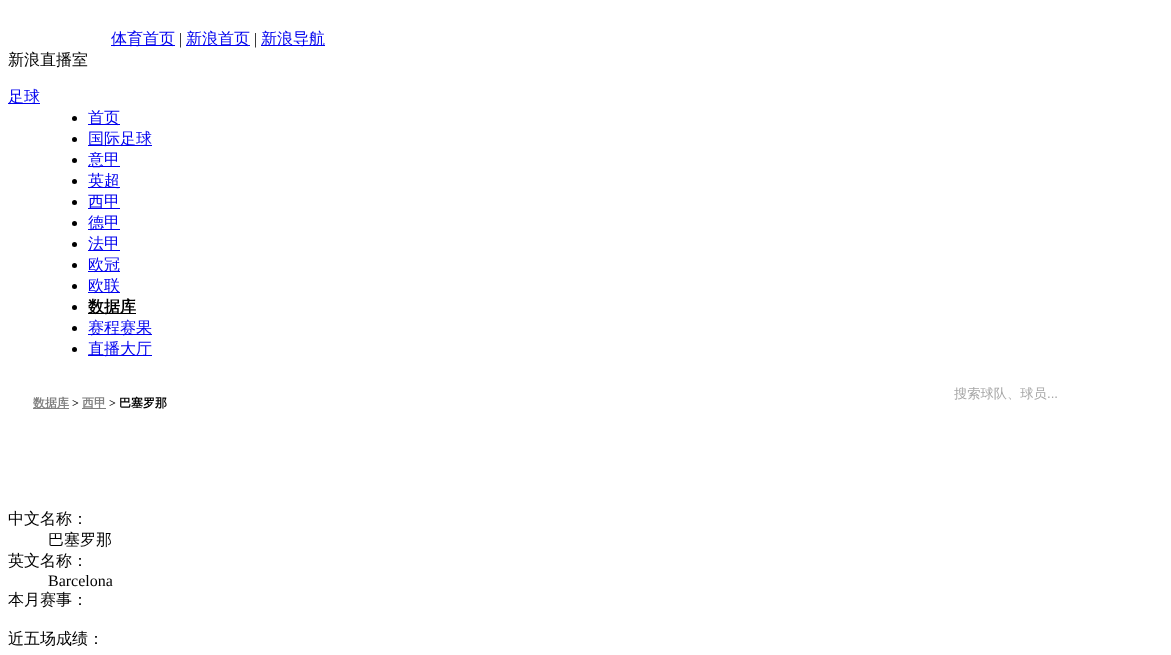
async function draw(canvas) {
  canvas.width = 1171;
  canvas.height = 655;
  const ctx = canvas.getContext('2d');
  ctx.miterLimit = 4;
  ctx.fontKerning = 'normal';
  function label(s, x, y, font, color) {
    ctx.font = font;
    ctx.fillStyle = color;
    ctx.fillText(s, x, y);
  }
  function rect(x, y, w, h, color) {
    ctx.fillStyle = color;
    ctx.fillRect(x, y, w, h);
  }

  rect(0, 0, 1171, 655, '#fff');
  rect(111, 45, 64, 1, '#00e');
  label('体育首页', 111, 44, '500 16px WenQuanYi Zen Hei', '#00e');
  label('|', 179, 44, '16px Liberation Serif', '#000');
  rect(186, 45, 64, 1, '#00e');
  label('新浪首页', 186, 44, '500 16px WenQuanYi Zen Hei', '#00e');
  label('|', 254, 44, '16px Liberation Serif', '#000');
  rect(261, 45, 64, 1, '#00e');
  label('新浪导航', 261, 44, '500 16px WenQuanYi Zen Hei', '#00e');
  label('新浪直播室', 8, 65, '500 16px WenQuanYi Zen Hei', '#000');
  rect(8, 103, 32, 1, '#00e');
  label('足球', 8, 102, '500 16px WenQuanYi Zen Hei', '#00e');
  ctx.fillStyle = '#000';
  ctx.beginPath();
  ctx.arc(74.5, 118.5, 2.5, 0, 2 * Math.PI);
  ctx.fill();
  rect(88, 124, 32, 1, '#00e');
  label('首页', 88, 123, '500 16px WenQuanYi Zen Hei', '#00e');
  ctx.fillStyle = '#000';
  ctx.beginPath();
  ctx.arc(74.5, 139.5, 2.5, 0, 2 * Math.PI);
  ctx.fill();
  rect(88, 145, 64, 1, '#00e');
  label('国际足球', 88, 144, '500 16px WenQuanYi Zen Hei', '#00e');
  ctx.fillStyle = '#000';
  ctx.beginPath();
  ctx.arc(74.5, 160.5, 2.5, 0, 2 * Math.PI);
  ctx.fill();
  rect(88, 166, 32, 1, '#00e');
  label('意甲', 88, 165, '500 16px WenQuanYi Zen Hei', '#00e');
  ctx.fillStyle = '#000';
  ctx.beginPath();
  ctx.arc(74.5, 181.5, 2.5, 0, 2 * Math.PI);
  ctx.fill();
  rect(88, 187, 32, 1, '#00e');
  label('英超', 88, 186, '500 16px WenQuanYi Zen Hei', '#00e');
  ctx.fillStyle = '#000';
  ctx.beginPath();
  ctx.arc(74.5, 202.5, 2.5, 0, 2 * Math.PI);
  ctx.fill();
  rect(88, 208, 32, 1, '#00e');
  label('西甲', 88, 207, '500 16px WenQuanYi Zen Hei', '#00e');
  ctx.fillStyle = '#000';
  ctx.beginPath();
  ctx.arc(74.5, 223.5, 2.5, 0, 2 * Math.PI);
  ctx.fill();
  rect(88, 229, 32, 1, '#00e');
  label('德甲', 88, 228, '500 16px WenQuanYi Zen Hei', '#00e');
  ctx.fillStyle = '#000';
  ctx.beginPath();
  ctx.arc(74.5, 244.5, 2.5, 0, 2 * Math.PI);
  ctx.fill();
  rect(88, 250, 32, 1, '#00e');
  label('法甲', 88, 249, '500 16px WenQuanYi Zen Hei', '#00e');
  ctx.fillStyle = '#000';
  ctx.beginPath();
  ctx.arc(74.5, 265.5, 2.5, 0, 2 * Math.PI);
  ctx.fill();
  rect(88, 271, 32, 1, '#00e');
  label('欧冠', 88, 270, '500 16px WenQuanYi Zen Hei', '#00e');
  ctx.fillStyle = '#000';
  ctx.beginPath();
  ctx.arc(74.5, 286.5, 2.5, 0, 2 * Math.PI);
  ctx.fill();
  rect(88, 292, 32, 1, '#00e');
  label('欧联', 88, 291, '500 16px WenQuanYi Zen Hei', '#00e');
  ctx.fillStyle = '#000';
  ctx.beginPath();
  ctx.arc(74.5, 307.5, 2.5, 0, 2 * Math.PI);
  ctx.fill();
  rect(88, 313, 48, 1, '#000');
  label('数据库', 88, 312, 'bold 16px WenQuanYi Zen Hei', '#000');
  ctx.beginPath();
  ctx.arc(74.5, 328.5, 2.5, 0, 2 * Math.PI);
  ctx.fill();
  rect(88, 334, 64, 1, '#00e');
  label('赛程赛果', 88, 333, '500 16px WenQuanYi Zen Hei', '#00e');
  ctx.fillStyle = '#000';
  ctx.beginPath();
  ctx.arc(74.5, 349.5, 2.5, 0, 2 * Math.PI);
  ctx.fill();
  rect(88, 355, 64, 1, '#00e');
  label('直播大厅', 88, 354, '500 16px WenQuanYi Zen Hei', '#00e');
  label('搜索球队、球员', 954, 398, '500 13.25px WenQuanYi Zen Hei', '#a6a6a6');
  label('...', 1047, 398, '13.25px Liberation Sans', '#a6a6a6');
  rect(33, 408, 36, 1, '#828282');
  label('数据库', 33, 407, 'bold 12px WenQuanYi Zen Hei', '#828282');
  label('>', 72, 407, 'bold 12px Liberation Serif', '#000');
  rect(82, 408, 24, 1, '#828282');
  label('西甲', 82, 407, 'bold 12px WenQuanYi Zen Hei', '#828282');
  label('>', 109, 407, 'bold 12px Liberation Serif', '#000');
  label('巴塞罗那', 119, 407, 'bold 12px WenQuanYi Zen Hei', '#000');
  label('中文名称：', 8, 524, '500 16px WenQuanYi Zen Hei', '#000');
  label('巴塞罗那', 48, 545, '500 16px WenQuanYi Zen Hei', '#000');
  label('英文名称：', 8, 566, '500 16px WenQuanYi Zen Hei', '#000');
  label('Barcelona', 48, 586, '16px Liberation Serif', '#000');
  label('本月赛事：', 8, 605, '500 16px WenQuanYi Zen Hei', '#000');
  label('近五场成绩：', 8, 644, '500 16px WenQuanYi Zen Hei', '#000');
}

draw(document.querySelector('canvas'));
